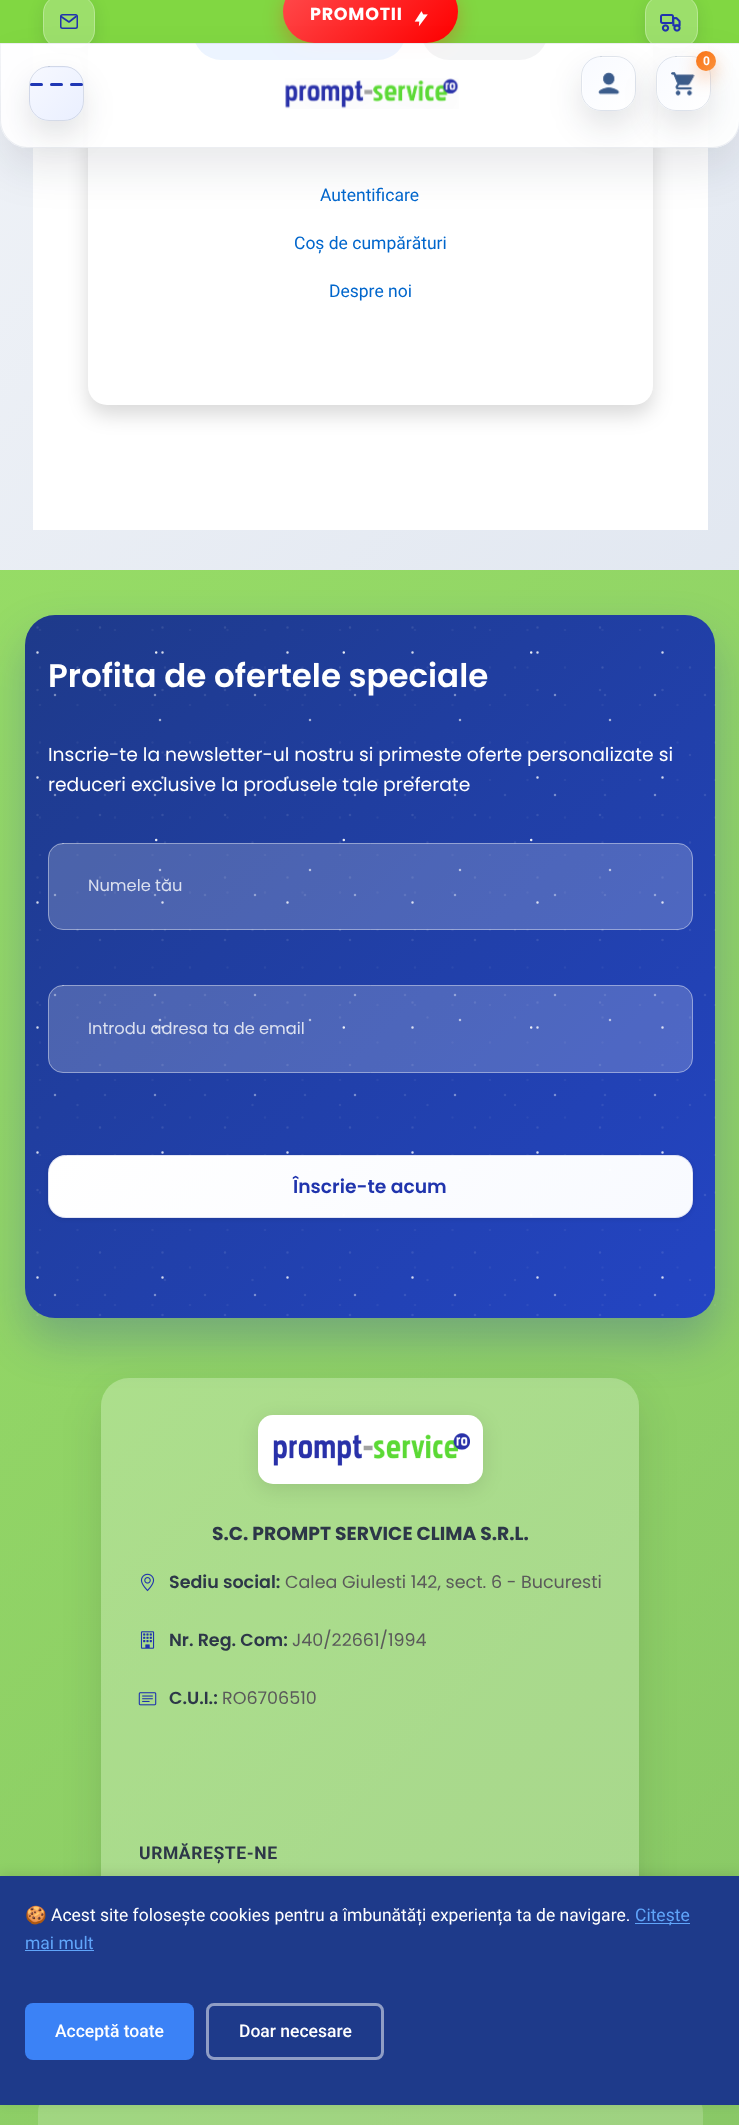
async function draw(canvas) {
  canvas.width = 739;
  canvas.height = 2125;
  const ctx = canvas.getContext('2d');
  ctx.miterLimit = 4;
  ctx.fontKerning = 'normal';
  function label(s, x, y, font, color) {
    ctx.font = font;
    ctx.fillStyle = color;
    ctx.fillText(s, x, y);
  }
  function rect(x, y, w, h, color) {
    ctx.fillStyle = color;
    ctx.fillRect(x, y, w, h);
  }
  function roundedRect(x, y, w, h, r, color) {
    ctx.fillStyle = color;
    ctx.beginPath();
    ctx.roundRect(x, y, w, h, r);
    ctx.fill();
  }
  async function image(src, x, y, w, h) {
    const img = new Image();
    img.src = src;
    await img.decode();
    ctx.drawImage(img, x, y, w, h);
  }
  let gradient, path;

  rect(0, 0, 739, 2125, '#fff');
  gradient = ctx.createLinearGradient(-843, 288, 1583, 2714);
  gradient.addColorStop(0, '#f5f7fa');
  gradient.addColorStop(1, '#c3cfe2');
  ctx.fillStyle = gradient;
  ctx.fillRect(0, 43, 739, 2082);
  rect(33, 43, 675, 487, '#fff');
  ctx.fillStyle = '#00000026';
  ctx.filter = 'blur(10px)';
  ctx.beginPath();
  ctx.roundRect(88, -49, 565, 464, 19);
  ctx.fill();
  ctx.filter = 'none';
  roundedRect(88, -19, 565, 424, 19, '#fff');
  roundedRect(193, 3, 213, 57, 28.5, '#0d6efd');
  roundedRect(421, 3, 127, 57, 28.5, '#6c757d');
  rect(0, 0, 739, 43, '#81d742');
  ctx.save();
  path = new Path2D('M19 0H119V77H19ZM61-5H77C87-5 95 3 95 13V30C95 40 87 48 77 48H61C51 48 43 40 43 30V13C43 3 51-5 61-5Z');
  ctx.clip(path, 'evenodd');
  ctx.fillStyle = '#0f172a1f';
  ctx.filter = 'blur(7.5px)';
  ctx.beginPath();
  ctx.roundRect(43, 0, 52, 53, 18);
  ctx.fill();
  ctx.filter = 'none';
  ctx.restore();
  roundedRect(43, -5, 52, 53, 18, '#ffffff38');
  ctx.beginPath();
  ctx.roundRect(43.5, -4.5, 51, 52, 17.5);
  ctx.strokeStyle = '#ffffff47';
  ctx.stroke();
  ctx.beginPath();
  ctx.roundRect(60.75, 14.75, 16.5, 13.5, 1.75);
  ctx.strokeStyle = '#2034ad';
  ctx.lineWidth = 1.5;
  ctx.stroke();
  path = new Path2D('M61 16.5L69 22L76 16.5');
  ctx.lineWidth = 1.7;
  ctx.lineCap = 'round';
  ctx.lineJoin = 'round';
  ctx.stroke(path);
  ctx.fillStyle = '#ff000040';
  ctx.filter = 'blur(10px)';
  ctx.beginPath();
  ctx.roundRect(283, -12, 175, 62, 31);
  ctx.fill();
  ctx.filter = 'none';
  gradient = ctx.createLinearGradient(311, -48, 429, 71);
  gradient.addColorStop(0, '#ff4d4f');
  gradient.addColorStop(1, '#f00');
  ctx.fillStyle = gradient;
  ctx.beginPath();
  ctx.roundRect(283, -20, 175, 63, 31.5);
  ctx.fill();
  ctx.letterSpacing = '0.75px';
  label('PROMOTII', 310, 20, 'bold 17.5px Poppins', '#fff');
  await image('assets/img1.png', 414, 11, 14, 16);
  ctx.save();
  path = new Path2D('M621 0H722V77H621ZM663-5H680C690-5 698 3 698 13V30C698 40 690 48 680 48H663C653 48 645 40 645 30V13C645 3 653-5 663-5Z');
  ctx.clip(path, 'evenodd');
  ctx.fillStyle = '#0f172a1f';
  ctx.filter = 'blur(7.5px)';
  ctx.beginPath();
  ctx.roundRect(645, 0, 53, 53, 18);
  ctx.fill();
  ctx.filter = 'none';
  ctx.restore();
  roundedRect(645, -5, 53, 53, 18, '#ffffff38');
  ctx.beginPath();
  ctx.roundRect(645.5, -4.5, 52, 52, 17.5);
  ctx.strokeStyle = '#ffffff47';
  ctx.lineWidth = 1;
  ctx.lineJoin = 'miter';
  ctx.stroke();
  await image('assets/img2.png', 660, 14, 21, 18);
  ctx.save();
  path = new Path2D('M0 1H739V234H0ZM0 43H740V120C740 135.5 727.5 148 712 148H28C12.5 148 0 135.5 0 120Z');
  ctx.clip(path, 'evenodd');
  ctx.fillStyle = '#0f172a17';
  ctx.filter = 'blur(21px)';
  ctx.beginPath();
  ctx.roundRect(0, 65, 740, 105, 28);
  ctx.fill();
  ctx.filter = 'none';
  ctx.restore();
  ctx.fillStyle = '#ffffffeb';
  path = new Path2D('M0 43H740V120C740 135.5 727.5 148 712 148H28C12.5 148 0 135.5 0 120Z');
  ctx.fill(path);
  path = new Path2D('M.5 43.5H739.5V120C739.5 135 727 147.5 712 147.5H28C13 147.5 .5 135 .5 120Z');
  ctx.strokeStyle = '#94a3b82e';
  ctx.stroke(path);
  ctx.save();
  path = new Path2D('M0 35H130V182H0ZM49 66H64C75 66 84 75 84 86V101C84 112 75 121 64 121H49C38 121 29 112 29 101V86C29 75 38 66 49 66Z');
  ctx.clip(path, 'evenodd');
  ctx.fillStyle = '#0f172a1f';
  ctx.filter = 'blur(15px)';
  ctx.beginPath();
  ctx.roundRect(29, 81, 55, 55, 20);
  ctx.fill();
  ctx.filter = 'none';
  ctx.restore();
  ctx.save();
  ctx.beginPath();
  ctx.roundRect(29, 66, 55, 55, 20);
  ctx.clip();
  gradient = ctx.createLinearGradient(30, 15, 83, 68);
  gradient.addColorStop(0, '#f6f8fff2');
  gradient.addColorStop(1, '#e8eeffeb');
  ctx.fillStyle = gradient;
  ctx.fillRect(40, 66, 33, 2);
  gradient = ctx.createLinearGradient(-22, 68, 30, 120);
  gradient.addColorStop(0, '#f6f8ff');
  gradient.addColorStop(1, '#eaefff');
  ctx.fillStyle = gradient;
  ctx.fillRect(29, 80, 1, 27);
  gradient = ctx.createLinearGradient(30, 68, 83, 120);
  gradient.addColorStop(0, '#f6f8fff2');
  gradient.addColorStop(1, '#e8eeffeb');
  ctx.fillStyle = gradient;
  ctx.fillRect(30, 68, 53, 52);
  gradient = ctx.createLinearGradient(83, 68, 135, 120);
  gradient.addColorStop(0, '#f6f8fff2');
  gradient.addColorStop(1, '#e8eeffeb');
  ctx.fillStyle = gradient;
  ctx.fillRect(83, 80, 1, 27);
  gradient = ctx.createLinearGradient(30, 120, 83, 173);
  gradient.addColorStop(0, '#f6f8ff');
  gradient.addColorStop(1, '#eaefff');
  ctx.fillStyle = gradient;
  ctx.fillRect(43, 120, 27, 1);
  ctx.restore();
  ctx.beginPath();
  ctx.roundRect(29.5, 66.5, 54, 54, 19.5);
  ctx.strokeStyle = '#94a3b852';
  ctx.stroke();
  roundedRect(30, 83, 13, 3, 1.5, '#1f37b4');
  roundedRect(50, 83, 13, 3, 1.5, '#1f37b4');
  roundedRect(70, 83, 13, 3, 1.5, '#1f37b4');
  ctx.save();
  path = new Path2D('M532 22H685V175H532ZM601 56H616C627 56 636 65 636 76V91C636 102 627 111 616 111H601C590 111 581 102 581 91V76C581 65 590 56 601 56Z');
  ctx.clip(path, 'evenodd');
  ctx.fillStyle = '#0f172a1f';
  ctx.filter = 'blur(16px)';
  ctx.beginPath();
  ctx.roundRect(581, 71, 55, 55, 20);
  ctx.fill();
  ctx.filter = 'none';
  ctx.restore();
  ctx.save();
  ctx.beginPath();
  ctx.roundRect(581, 56, 55, 55, 20);
  ctx.clip();
  gradient = ctx.createLinearGradient(583, 5, 635, 58);
  gradient.addColorStop(0, '#f8fafff5');
  gradient.addColorStop(1, '#fffffff5');
  ctx.fillStyle = gradient;
  ctx.fillRect(592, 56, 33, 2);
  gradient = ctx.createLinearGradient(530, 58, 583, 110);
  gradient.addColorStop(0, '#f8fafff5');
  gradient.addColorStop(1, '#fffffff5');
  ctx.fillStyle = gradient;
  ctx.fillRect(581, 67, 2, 33);
  gradient = ctx.createLinearGradient(583, 58, 635, 110);
  gradient.addColorStop(0, '#f8fafff5');
  gradient.addColorStop(1, '#fffffff5');
  ctx.fillStyle = gradient;
  ctx.fillRect(583, 58, 52, 52);
  gradient = ctx.createLinearGradient(635, 58, 688, 110);
  gradient.addColorStop(0, '#f8faff');
  gradient.addColorStop(1, '#fff');
  ctx.fillStyle = gradient;
  ctx.fillRect(635, 70, 1, 27);
  gradient = ctx.createLinearGradient(583, 110, 635, 163);
  gradient.addColorStop(0, '#f8faff');
  gradient.addColorStop(1, '#fff');
  ctx.fillStyle = gradient;
  ctx.fillRect(595, 110, 27, 1);
  ctx.restore();
  ctx.beginPath();
  ctx.roundRect(581.5, 56.5, 54, 54, 19.5);
  ctx.strokeStyle = '#94a3b847';
  ctx.stroke();
  await image('assets/img3.png', 598, 72, 22, 23);
  ctx.save();
  path = new Path2D('M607 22H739V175H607ZM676 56H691C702 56 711 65 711 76V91C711 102 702 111 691 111H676C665 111 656 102 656 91V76C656 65 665 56 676 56Z');
  ctx.clip(path, 'evenodd');
  ctx.fillStyle = '#0f172a1f';
  ctx.filter = 'blur(16px)';
  ctx.beginPath();
  ctx.roundRect(656, 71, 55, 55, 20);
  ctx.fill();
  ctx.filter = 'none';
  ctx.restore();
  ctx.save();
  ctx.beginPath();
  ctx.roundRect(656, 56, 55, 55, 20);
  ctx.clip();
  gradient = ctx.createLinearGradient(605, 58, 658, 110);
  gradient.addColorStop(0, '#f8fafff5');
  gradient.addColorStop(1, '#fffffff5');
  ctx.fillStyle = gradient;
  ctx.fillRect(656, 67, 2, 33);
  gradient = ctx.createLinearGradient(658, 58, 710, 110);
  gradient.addColorStop(0, '#f8fafff5');
  gradient.addColorStop(1, '#fffffff5');
  ctx.fillStyle = gradient;
  ctx.fillRect(658, 58, 52, 52);
  gradient = ctx.createLinearGradient(710, 58, 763, 110);
  gradient.addColorStop(0, '#f8faff');
  gradient.addColorStop(1, '#fff');
  ctx.fillStyle = gradient;
  ctx.fillRect(710, 70, 1, 27);
  gradient = ctx.createLinearGradient(658, 110, 710, 163);
  gradient.addColorStop(0, '#f8fafff5');
  gradient.addColorStop(1, '#fffffff5');
  ctx.fillStyle = gradient;
  ctx.fillRect(670, 110, 27, 1);
  ctx.restore();
  ctx.beginPath();
  ctx.roundRect(656.5, 56.5, 54, 54, 19.5);
  ctx.stroke();
  await image('assets/img4.png', 671, 72, 24, 24);
  ctx.fillStyle = '#f9731659';
  ctx.filter = 'blur(9px)';
  ctx.beginPath();
  ctx.roundRect(696, 59, 20, 20, 10);
  ctx.fill();
  ctx.filter = 'none';
  gradient = ctx.createLinearGradient(696, 51, 716, 71);
  gradient.addColorStop(0, '#f97316');
  gradient.addColorStop(1, '#fb923c');
  ctx.fillStyle = gradient;
  ctx.beginPath();
  ctx.arc(706, 61, 10, 0, 2 * Math.PI);
  ctx.fill();
  ctx.letterSpacing = '0px';
  label('0', 703, 65, 'bold 12px Roboto', '#fff');
  await image('assets/img5.png', 285, 78, 174, 31);
  label('Autentificare', 320, 201, '17.5px Roboto', '#06c');
  label('Coș de cumpărături', 294, 249, '17.5px Roboto', '#06c');
  label('Despre noi', 329, 297, '17.5px Roboto', '#06c');
  gradient = ctx.createLinearGradient(-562, 1132, 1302, 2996);
  gradient.addColorStop(0, '#81d742cc');
  gradient.addColorStop(1, '#64b432b3');
  ctx.fillStyle = gradient;
  ctx.fillRect(0, 570, 739, 1555);
  ctx.fillStyle = '#2034ad42';
  ctx.filter = 'blur(22.5px)';
  ctx.beginPath();
  ctx.roundRect(25, 638, 690, 702, 30);
  ctx.fill();
  ctx.filter = 'none';
  gradient = ctx.createLinearGradient(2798, 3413, 13, 628);
  gradient.addColorStop(0, '#2034ad');
  gradient.addColorStop(0.33, '#1a2985');
  gradient.addColorStop(0.67, '#2548d6');
  gradient.addColorStop(1, '#1e3a8a');
  ctx.fillStyle = gradient;
  ctx.beginPath();
  ctx.roundRect(25, 615, 690, 703, 30);
  ctx.fill();
  path = new Path2D('M77.5 667.5H690.2');
  ctx.strokeStyle = '#ffffff14';
  ctx.lineWidth = 2.5;
  ctx.setLineDash([0, 87.5]);
  ctx.stroke(path);
  path = new Path2D('M77.5 755H690.2');
  ctx.stroke(path);
  path = new Path2D('M77.5 842.5H690.2');
  ctx.stroke(path);
  path = new Path2D('M77.5 930H690.2');
  ctx.stroke(path);
  path = new Path2D('M77.5 1017.5H690.2');
  ctx.stroke(path);
  path = new Path2D('M77.5 1105H690.2');
  ctx.stroke(path);
  path = new Path2D('M77.5 1280H690.2');
  ctx.stroke(path);
  path = new Path2D('M40 630H715.2');
  ctx.strokeStyle = '#ffffff0d';
  ctx.setLineDash([0, 37.5]);
  ctx.stroke(path);
  path = new Path2D('M40 667.5H715.2');
  ctx.stroke(path);
  path = new Path2D('M40 705H715.2');
  ctx.stroke(path);
  path = new Path2D('M40 742.5H715.2');
  ctx.stroke(path);
  path = new Path2D('M40 780H715.2');
  ctx.stroke(path);
  path = new Path2D('M40 817.5H715.2');
  ctx.stroke(path);
  path = new Path2D('M40 855H715.2');
  ctx.stroke(path);
  path = new Path2D('M40 892.5H715.2');
  ctx.stroke(path);
  path = new Path2D('M40 930H715.2');
  ctx.stroke(path);
  path = new Path2D('M40 967.5H715.2');
  ctx.stroke(path);
  path = new Path2D('M40 1005H715.2');
  ctx.stroke(path);
  path = new Path2D('M40 1042.5H715.2');
  ctx.stroke(path);
  path = new Path2D('M40 1080H715.2');
  ctx.stroke(path);
  path = new Path2D('M40 1117.5H715.2');
  ctx.stroke(path);
  path = new Path2D('M40 1155H715.2');
  ctx.stroke(path);
  path = new Path2D('M40 1192.5H715.2');
  ctx.stroke(path);
  path = new Path2D('M40 1230H715.2');
  ctx.stroke(path);
  path = new Path2D('M40 1267.5H715.2');
  ctx.stroke(path);
  path = new Path2D('M40 1305H715.2');
  ctx.stroke(path);
  path = new Path2D('M105 695H705.2');
  ctx.strokeStyle = '#ffffff1a';
  ctx.setLineDash([0, 100]);
  ctx.stroke(path);
  path = new Path2D('M105 795H705.2');
  ctx.stroke(path);
  path = new Path2D('M105 895H705.2');
  ctx.stroke(path);
  path = new Path2D('M105 995H705.2');
  ctx.stroke(path);
  path = new Path2D('M105 1095H705.2');
  ctx.stroke(path);
  path = new Path2D('M105 1195H705.2');
  ctx.stroke(path);
  path = new Path2D('M105 1295H705.2');
  ctx.stroke(path);
  path = new Path2D('M37.5 627.5V1315.2');
  ctx.setLineDash([0, 62.5]);
  ctx.stroke(path);
  path = new Path2D('M100 627.5V1315.2');
  ctx.stroke(path);
  path = new Path2D('M162.5 627.5V1315.2');
  ctx.stroke(path);
  path = new Path2D('M225 627.5V1315.2');
  ctx.stroke(path);
  path = new Path2D('M287.5 627.5V1315.2');
  ctx.stroke(path);
  path = new Path2D('M350 627.5V1315.2');
  ctx.stroke(path);
  path = new Path2D('M412.5 627.5V1315.2');
  ctx.stroke(path);
  path = new Path2D('M475 627.5V1315.2');
  ctx.stroke(path);
  path = new Path2D('M537.5 627.5V1315.2');
  ctx.stroke(path);
  path = new Path2D('M600 627.5V1315.2');
  ctx.stroke(path);
  path = new Path2D('M662.5 627.5V1315.2');
  ctx.stroke(path);
  label('Profita de ofertele speciale', 48, 687, '600 32.5px Poppins', '#fff');
  label('Inscrie-te la newsletter-ul nostru si primeste oferte personalizate si', 48, 761, '18.75px Poppins', '#fff');
  label('reduceri exclusive la produsele tale preferate', 48, 791, '18.75px Poppins', '#fff');
  roundedRect(48, 843, 645, 87, 15, '#ffffff33');
  ctx.beginPath();
  ctx.roundRect(48.5, 843.5, 644, 86, 14.5);
  ctx.strokeStyle = '#ffffff66';
  ctx.lineWidth = 1;
  ctx.setLineDash([]);
  ctx.stroke();
  label('Numele tău', 88, 891, '16.25px Poppins', '#dbe0ef');
  roundedRect(48, 985, 645, 88, 15, '#ffffff33');
  ctx.beginPath();
  ctx.roundRect(48.5, 985.5, 644, 87, 14.5);
  ctx.stroke();
  label('Introdu adresa ta de email', 88, 1034, '16.25px Poppins', '#dbe0ef');
  ctx.fillStyle = '#0000001a';
  ctx.filter = 'blur(2px)';
  ctx.beginPath();
  ctx.roundRect(48, 1156, 645, 63, 18);
  ctx.fill();
  ctx.filter = 'none';
  ctx.save();
  ctx.beginPath();
  ctx.roundRect(48, 1155, 645, 63, 18);
  ctx.clip();
  gradient = ctx.createLinearGradient(194, 951, 546, 1302);
  gradient.addColorStop(0, '#fff');
  gradient.addColorStop(1, '#f8faff');
  ctx.fillStyle = gradient;
  ctx.fillRect(60, 1155, 621, 1);
  gradient = ctx.createLinearGradient(194, 1011, 546, 1362);
  gradient.addColorStop(0, '#fff');
  gradient.addColorStop(1, '#f8faff');
  ctx.fillStyle = gradient;
  ctx.fillRect(49, 1156, 642, 60);
  gradient = ctx.createLinearGradient(194, 1071, 546, 1422);
  gradient.addColorStop(0, '#fff');
  gradient.addColorStop(1, '#f8faff');
  ctx.fillStyle = gradient;
  ctx.fillRect(58, 1216, 633, 2);
  gradient = ctx.createLinearGradient(-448, 1011, -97, 1362);
  gradient.addColorStop(0, '#fff');
  gradient.addColorStop(1, '#f8faff');
  ctx.fillStyle = gradient;
  ctx.fillRect(48, 1167, 1, 39);
  gradient = ctx.createLinearGradient(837, 1011, 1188, 1362);
  gradient.addColorStop(0, '#fff');
  gradient.addColorStop(1, '#f8faff');
  ctx.fillStyle = gradient;
  ctx.fillRect(691, 1165, 2, 51);
  ctx.restore();
  ctx.beginPath();
  ctx.roundRect(48.5, 1155.5, 644, 62, 17.5);
  ctx.strokeStyle = '#2034ad1f';
  ctx.stroke();
  path = new Path2D('M156.2 652.5V1215.2');
  ctx.strokeStyle = '#ffffffe6';
  ctx.lineWidth = 2.5;
  ctx.setLineDash([0, 187.5]);
  ctx.stroke(path);
  label('Înscrie-te acum', 293, 1193, '600 18.75px Poppins', '#2034ad');
  path = new Path2D('M343.8 652.5V1215.2');
  ctx.stroke(path);
  path = new Path2D('M531.2 652.5V1215.2');
  ctx.stroke(path);
  path = new Path2D('M55 695H655.2');
  ctx.strokeStyle = '#ffffff66';
  ctx.setLineDash([0, 100]);
  ctx.stroke(path);
  path = new Path2D('M55 795H655.2');
  ctx.stroke(path);
  path = new Path2D('M55 895H655.2');
  ctx.stroke(path);
  path = new Path2D('M55 995H655.2');
  ctx.stroke(path);
  path = new Path2D('M55 1095H655.2');
  ctx.stroke(path);
  path = new Path2D('M55 1295H655.2');
  ctx.stroke(path);
  path = new Path2D('M160 720H610.2');
  ctx.strokeStyle = '#ffffff99';
  ctx.setLineDash([0, 150]);
  ctx.stroke(path);
  path = new Path2D('M160 870H610.2');
  ctx.stroke(path);
  path = new Path2D('M160 1020H610.2');
  ctx.stroke(path);
  path = new Path2D('M160 1170H610.2');
  ctx.stroke(path);
  path = new Path2D('M37.5 652.5H662.8');
  ctx.strokeStyle = '#ffffffcc';
  ctx.setLineDash([0, 125]);
  ctx.stroke(path);
  path = new Path2D('M37.5 777.5H662.8');
  ctx.stroke(path);
  path = new Path2D('M37.5 902.5H662.8');
  ctx.stroke(path);
  path = new Path2D('M37.5 1027.5H662.8');
  ctx.stroke(path);
  path = new Path2D('M37.5 1152.5H662.8');
  ctx.stroke(path);
  path = new Path2D('M37.5 1277.5H662.8');
  ctx.stroke(path);
  roundedRect(38, 2085, 665, 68, 28, '#ffffff2e');
  ctx.save();
  path = new Path2D('M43 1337H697V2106H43ZM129 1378H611C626.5 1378 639 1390.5 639 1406V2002C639 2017.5 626.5 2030 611 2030H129C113.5 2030 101 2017.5 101 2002V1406C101 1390.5 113.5 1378 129 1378Z');
  ctx.clip(path, 'evenodd');
  ctx.fillStyle = '#0f172a1f';
  ctx.filter = 'blur(19px)';
  ctx.beginPath();
  ctx.roundRect(101, 1395, 538, 653, 28);
  ctx.fill();
  ctx.filter = 'none';
  ctx.restore();
  roundedRect(101, 1378, 538, 652, 28, '#ffffff40');
  ctx.fillStyle = '#0000001a';
  ctx.filter = 'blur(10px)';
  ctx.beginPath();
  ctx.roundRect(258, 1420, 225, 69, 15);
  ctx.fill();
  ctx.filter = 'none';
  roundedRect(258, 1415, 225, 69, 15, '#fff');
  await image('assets/img6.png', 273, 1433, 197, 33);
  label('S.C. PROMPT SERVICE CLIMA S.R.L.', 212, 1540, 'bold 18.75px Poppins', '#2d3748');
  await image('assets/img7.png', 140, 1573, 15, 19);
  label('Sediu social:', 169, 1588, '600 17.5px Poppins', '#2d3748');
  label('Calea Giulesti 142, sect. 6 - Bucuresti', 285, 1588, '17.5px Poppins', '#5a5a5a');
  await image('assets/img8.png', 140, 1631, 15, 18);
  label('Nr. Reg. Com:', 169, 1646, '600 17.5px Poppins', '#2d3748');
  label('J40/22661/1994', 292, 1646, '17.5px Poppins', '#5a5a5a');
  await image('assets/img9.png', 138, 1692, 19, 14);
  label('C.U.I.:', 169, 1704, '600 17.5px Poppins', '#2d3748');
  label('RO6706510', 222, 1704, '17.5px Poppins', '#5a5a5a');
  ctx.letterSpacing = '0.6px';
  label('URMĂREȘTE-NE', 139, 1859, 'bold 17.5px Roboto', '#2d3748');
  ctx.fillStyle = '#0000001a';
  ctx.filter = 'blur(6px)';
  ctx.beginPath();
  ctx.rect(0, 1874, 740, 229);
  ctx.fill();
  ctx.filter = 'none';
  rect(0, 1876, 739, 229, '#1e3a8a');
  ctx.letterSpacing = '0px';
  label('🍪', 25, 1921, '17.5px Noto Color Emoji', '#fff');
  label('Acest site folosește cookies pentru a îmbunătăți experiența ta de navigare.', 51, 1921, '17.5px Roboto', '#fff');
  rect(635, 1923, 55, 1, '#60a5fa');
  label('Citește', 635, 1921, '17.5px Roboto', '#60a5fa');
  label('mai mult', 25, 1949, '17.5px Roboto', '#60a5fa');
  rect(25, 1950, 69, 1, '#60a5fa');
  roundedRect(25, 2003, 169, 57, 8, '#3b82f6');
  label('Acceptă toate', 55, 2037, '500 17.5px Roboto', '#fff');
  ctx.beginPath();
  ctx.roundRect(207.5, 2004.5, 175, 54, 6.5);
  ctx.strokeStyle = '#8f9dc5';
  ctx.lineWidth = 3;
  ctx.setLineDash([]);
  ctx.stroke();
  label('Doar necesare', 239, 2037, '500 17.5px Roboto', '#fff');
}

draw(document.querySelector('canvas'));
